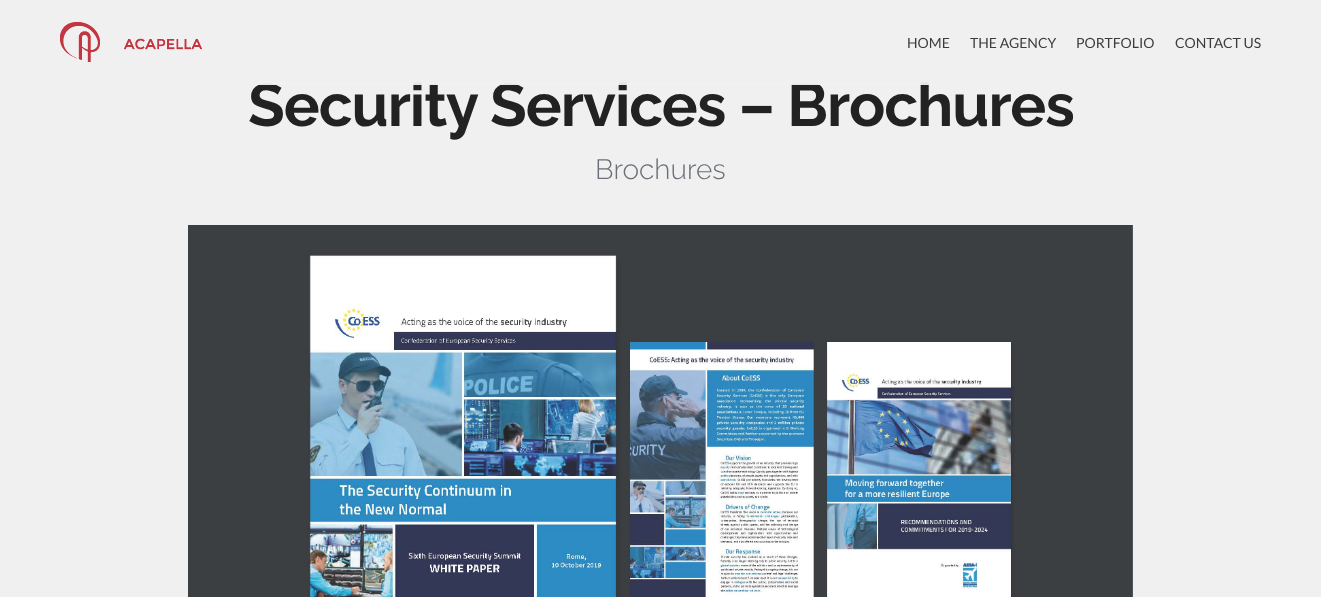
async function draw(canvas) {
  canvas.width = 1321;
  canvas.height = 597;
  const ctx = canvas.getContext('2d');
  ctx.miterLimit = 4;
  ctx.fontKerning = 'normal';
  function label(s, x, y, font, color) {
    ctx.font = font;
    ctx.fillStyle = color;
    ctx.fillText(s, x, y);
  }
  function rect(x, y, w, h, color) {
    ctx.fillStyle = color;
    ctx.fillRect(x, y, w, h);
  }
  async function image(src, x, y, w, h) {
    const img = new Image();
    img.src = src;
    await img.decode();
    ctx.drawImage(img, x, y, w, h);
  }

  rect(0, 0, 1321, 597, '#f0f0f0');
  ctx.letterSpacing = '-1px';
  label('Security Services – Brochures', 248, 126, 'bold 60px Raleway', '#222');
  rect(257, 82, 672, 3, '#f0f0f0f2');
  await image('assets/img1.png', 60, 22, 143, 40);
  ctx.letterSpacing = '0px';
  label('HOME', 907, 48, '14px Lato', '#3c3c3c');
  label('THE AGENCY', 970, 48, '14px Lato', '#3c3c3c');
  label('PORTFOLIO', 1076, 48, '14px Lato', '#3c3c3c');
  label('CONTACT US', 1175, 48, '14px Lato', '#3c3c3c');
  label('Brochures', 595, 179, '300 28px Raleway', '#696f77');
  await image('assets/img2.png', 188, 225, 945, 372);
}

draw(document.querySelector('canvas'));
